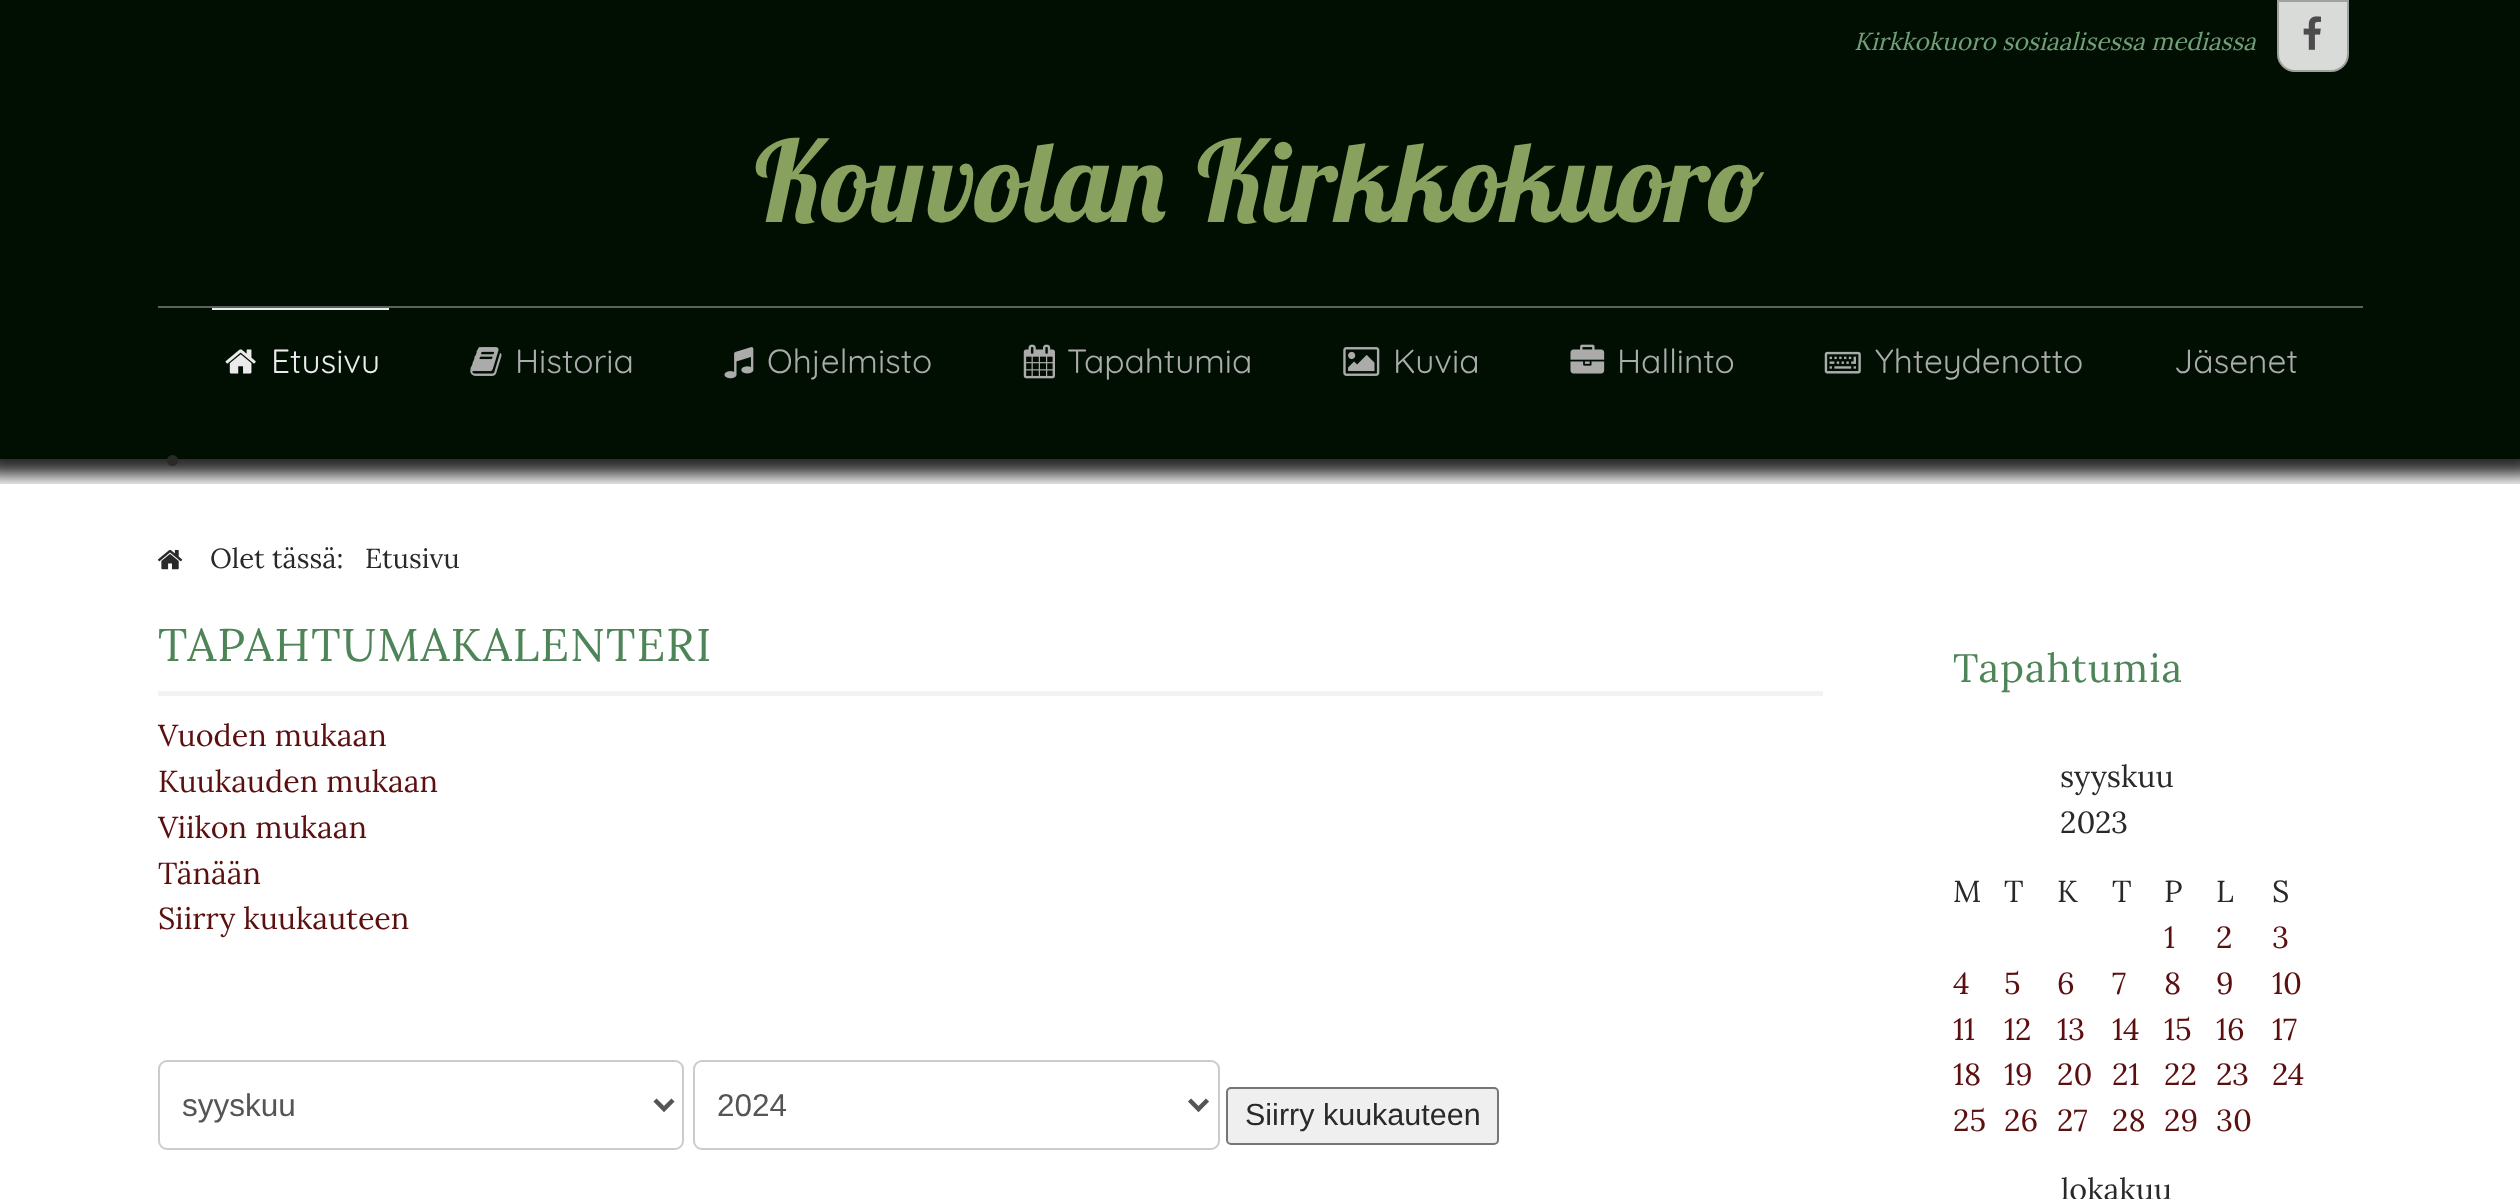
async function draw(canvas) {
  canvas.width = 2520;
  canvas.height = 1199;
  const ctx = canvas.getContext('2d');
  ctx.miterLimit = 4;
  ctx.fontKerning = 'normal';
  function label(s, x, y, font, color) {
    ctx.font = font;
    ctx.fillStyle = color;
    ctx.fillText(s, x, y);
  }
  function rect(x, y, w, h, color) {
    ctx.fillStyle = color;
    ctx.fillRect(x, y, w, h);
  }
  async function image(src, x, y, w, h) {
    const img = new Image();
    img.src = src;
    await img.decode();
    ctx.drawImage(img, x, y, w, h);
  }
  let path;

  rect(0, 0, 2520, 1199, '#fff');
  ctx.save();
  ctx.beginPath();
  ctx.rect(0, 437, 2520, 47);
  ctx.clip();
  ctx.fillStyle = '#000000d9';
  ctx.filter = 'blur(9px)';
  ctx.beginPath();
  ctx.rect(-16, 421, 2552, 54);
  ctx.fill();
  ctx.filter = 'none';
  ctx.restore();
  rect(0, 0, 2520, 459, '#010f03');
  ctx.fillStyle = '#292929';
  ctx.beginPath();
  ctx.arc(172.5, 460.5, 5.5, 0, 2 * Math.PI);
  ctx.fill();
  label('Kirkkokuoro sosiaalisessa mediassa', 1854, 50, 'italic 24.5px Lora', '#709f78');
  ctx.fillStyle = '#d9dbd9';
  ctx.beginPath();
  ctx.roundRect(2278, 1, 70, 70, [0, 0, 17, 17]);
  ctx.fill();
  ctx.strokeStyle = '#9fa19f';
  ctx.lineWidth = 2;
  ctx.stroke();
  await image('assets/img1.png', 2303, 16, 18, 34);
  ctx.wordSpacing = '7px';
  label('Kouvolan Kirkkokuoro', 755, 222, '112.5px Lobster', '#88a15e');
  rect(158, 306, 2205, 2, '#5a635b');
  rect(212, 308, 177, 2, '#ebebeb');
  await image('assets/img2.png', 225, 349, 31, 25);
  ctx.wordSpacing = '0px';
  label('Etusivu', 271, 373, '300 33.5px Quicksand', '#ebebeb');
  await image('assets/img3.png', 470, 347, 32, 29);
  label('Historia', 515, 373, '300 33.5px Quicksand', '#ababab');
  await image('assets/img4.png', 724, 347, 30, 32);
  label('Ohjelmisto', 767, 373, '300 33.5px Quicksand', '#ababab');
  await image('assets/img5.png', 1023, 344, 32, 35);
  label('Tapahtumia', 1067, 373, '300 33.5px Quicksand', '#ababab');
  await image('assets/img6.png', 1343, 347, 37, 29);
  label('Kuvia', 1393, 373, '300 33.5px Quicksand', '#ababab');
  await image('assets/img7.png', 1570, 344, 35, 30);
  label('Hallinto', 1617, 373, '300 33.5px Quicksand', '#ababab');
  await image('assets/img8.png', 1824, 351, 37, 23);
  label('Yhteydenotto', 1875, 373, '300 33.5px Quicksand', '#ababab');
  label('Jäsenet', 2174, 373, '300 33.5px Quicksand', '#ababab');
  await image('assets/img9.png', 157, 549, 26, 21);
  label('Olet tässä:', 210, 568, '27.5px Lora', '#292929');
  label('Etusivu', 365, 568, '27.5px Lora', '#292929');
  rect(158, 691, 1665, 5, '#f2f2f2');
  ctx.letterSpacing = '1.1px';
  label('TAPAHTUMAKALENTERI', 158, 661, '45.9px Lora', '#4e8558');
  ctx.letterSpacing = '0px';
  label('Vuoden mukaan', 158, 746, '30.5px Lora', '#5c0f0f');
  label('Kuukauden mukaan', 158, 792, '30.5px Lora', '#5c0f0f');
  label('Viikon mukaan', 158, 838, '30.5px Lora', '#5c0f0f');
  label('Tänään', 158, 884, '30.5px Lora', '#5c0f0f');
  label('Siirry kuukauteen', 158, 929, '30.5px Lora', '#5c0f0f');
  ctx.beginPath();
  ctx.roundRect(159, 1061, 524, 88, 8);
  ctx.strokeStyle = '#ccc';
  ctx.stroke();
  path = new Path2D('M655 1100L664 1109L673 1100');
  ctx.strokeStyle = '#555';
  ctx.lineWidth = 4.5;
  ctx.stroke(path);
  label('syyskuu', 182, 1116, '31.5px Liberation Sans', '#555');
  ctx.beginPath();
  ctx.roundRect(694, 1061, 525, 88, 8);
  ctx.strokeStyle = '#ccc';
  ctx.lineWidth = 2;
  ctx.stroke();
  path = new Path2D('M1189.5 1100L1198.5 1109L1207.5 1100');
  ctx.strokeStyle = '#555';
  ctx.lineWidth = 4.5;
  ctx.stroke(path);
  label('2024', 717, 1116, '31.5px Liberation Sans', '#555');
  ctx.fillStyle = '#efefef';
  ctx.beginPath();
  ctx.roundRect(1227, 1088, 271, 56, 4);
  ctx.fill();
  ctx.strokeStyle = '#767676';
  ctx.lineWidth = 2;
  ctx.stroke();
  label('Siirry kuukauteen', 1245, 1125, '30.5px Liberation Sans', '#292929');
  ctx.letterSpacing = '1.1px';
  label('Tapahtumia', 1953, 682, '39.75px Lora', '#4e8558');
  ctx.letterSpacing = '0px';
  label('syyskuu', 2060, 787, '30.5px Lora', '#292929');
  label('2023', 2060, 833, '30.5px Lora', '#292929');
  label('M', 1953, 902, '30.5px Lora', '#292929');
  label('T', 2004, 902, '30.5px Lora', '#292929');
  label('K', 2057, 902, '30.5px Lora', '#292929');
  label('T', 2112, 902, '30.5px Lora', '#292929');
  label('P', 2164, 902, '30.5px Lora', '#292929');
  label('L', 2216, 902, '30.5px Lora', '#292929');
  label('S', 2272, 902, '30.5px Lora', '#292929');
  label('1', 2164, 948, '30.5px Lora', '#5c0f0f');
  label('2', 2216, 948, '30.5px Lora', '#5c0f0f');
  label('3', 2272, 948, '30.5px Lora', '#5c0f0f');
  label('4', 1953, 994, '30.5px Lora', '#5c0f0f');
  label('5', 2004, 994, '30.5px Lora', '#5c0f0f');
  label('6', 2057, 994, '30.5px Lora', '#5c0f0f');
  label('7', 2112, 994, '30.5px Lora', '#5c0f0f');
  label('8', 2164, 994, '30.5px Lora', '#5c0f0f');
  label('9', 2216, 994, '30.5px Lora', '#5c0f0f');
  label('10', 2272, 994, '30.5px Lora', '#5c0f0f');
  label('11', 1953, 1040, '30.5px Lora', '#5c0f0f');
  label('12', 2004, 1040, '30.5px Lora', '#5c0f0f');
  label('13', 2057, 1040, '30.5px Lora', '#5c0f0f');
  label('14', 2112, 1040, '30.5px Lora', '#5c0f0f');
  label('15', 2164, 1040, '30.5px Lora', '#5c0f0f');
  label('16', 2216, 1040, '30.5px Lora', '#5c0f0f');
  label('17', 2272, 1040, '30.5px Lora', '#5c0f0f');
  label('18', 1953, 1085, '30.5px Lora', '#5c0f0f');
  label('19', 2004, 1085, '30.5px Lora', '#5c0f0f');
  label('20', 2057, 1085, '30.5px Lora', '#5c0f0f');
  label('21', 2112, 1085, '30.5px Lora', '#5c0f0f');
  label('22', 2164, 1085, '30.5px Lora', '#5c0f0f');
  label('23', 2216, 1085, '30.5px Lora', '#5c0f0f');
  label('24', 2272, 1085, '30.5px Lora', '#5c0f0f');
  label('25', 1953, 1131, '30.5px Lora', '#5c0f0f');
  label('26', 2004, 1131, '30.5px Lora', '#5c0f0f');
  label('27', 2057, 1131, '30.5px Lora', '#5c0f0f');
  label('28', 2112, 1131, '30.5px Lora', '#5c0f0f');
  label('29', 2164, 1131, '30.5px Lora', '#5c0f0f');
  label('30', 2216, 1131, '30.5px Lora', '#5c0f0f');
  label('lokakuu', 2061, 1200, '30.5px Lora', '#292929');
}

draw(document.querySelector('canvas'));
